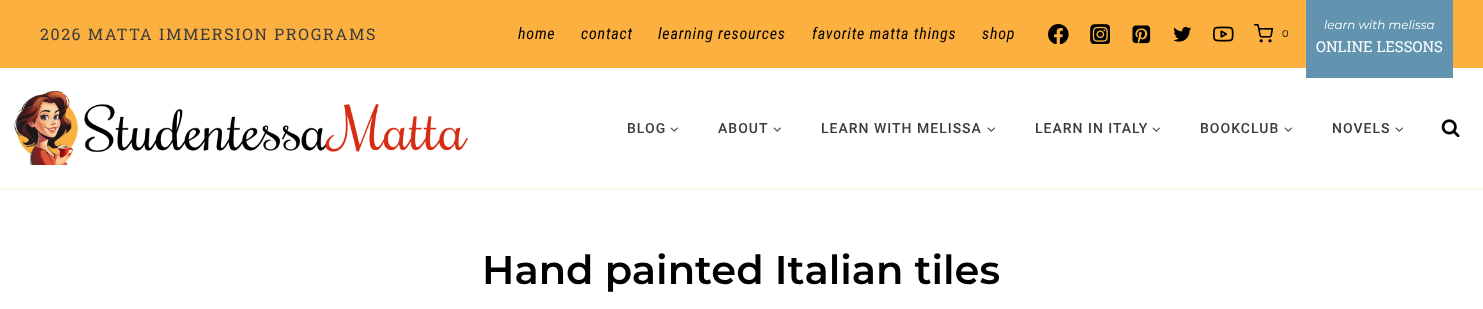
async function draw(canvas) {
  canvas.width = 1483;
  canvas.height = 309;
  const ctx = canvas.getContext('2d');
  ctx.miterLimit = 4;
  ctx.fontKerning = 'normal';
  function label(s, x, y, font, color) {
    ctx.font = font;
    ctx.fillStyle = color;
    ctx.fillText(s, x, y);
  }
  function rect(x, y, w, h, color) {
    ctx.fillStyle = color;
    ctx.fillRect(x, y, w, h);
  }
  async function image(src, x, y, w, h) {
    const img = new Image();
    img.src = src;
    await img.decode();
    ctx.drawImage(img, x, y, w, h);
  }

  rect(0, 0, 1483, 309, '#fff');
  rect(0, 0, 1483, 68, '#fbb040');
  ctx.letterSpacing = '1.6px';
  label('2026 MATTA IMMERSION PROGRAMS', 40, 40, '16px Roboto Slab', '#3c3c3c');
  ctx.letterSpacing = '0.8px';
  label('home', 518, 39, 'italic 16px Roboto Condensed', '#000');
  label('contact', 581, 39, 'italic 16px Roboto Condensed', '#000');
  label('learning resources', 658, 39, 'italic 16px Roboto Condensed', '#000');
  label('favorite matta things', 812, 39, 'italic 16px Roboto Condensed', '#000');
  label('shop', 982, 39, 'italic 16px Roboto Condensed', '#000');
  await image('assets/img1.png', 1048, 24, 21, 20);
  await image('assets/img2.png', 1090, 24, 20, 20);
  await image('assets/img3.png', 1132, 25, 19, 19);
  await image('assets/img4.png', 1173, 26, 19, 16);
  await image('assets/img5.png', 1213, 26, 21, 16);
  await image('assets/img6.png', 1254, 24, 19, 19);
  ctx.letterSpacing = '0px';
  label('0', 1282, 37, '10px Montserrat', '#000');
  rect(1306, 0, 147, 78, '#6293af');
  label('learn with melissa', 1324, 29, 'italic 12px Montserrat', '#fff');
  label('ONLINE LESSONS', 1316, 52, '15px Roboto Slab', '#fff');
  await image('assets/img7.png', 14, 91, 454, 74);
  ctx.letterSpacing = '1px';
  label('BLOG', 627, 133, '500 14px Roboto', '#3c3c3c');
  await image('assets/img8.png', 670, 127, 8, 5);
  label('ABOUT', 718, 133, '500 14px Roboto', '#3c3c3c');
  await image('assets/img8.png', 773, 127, 8, 5);
  label('LEARN WITH MELISSA', 821, 133, '500 14px Roboto', '#3c3c3c');
  await image('assets/img8.png', 987, 127, 8, 5);
  label('LEARN IN ITALY', 1035, 133, '500 14px Roboto', '#3c3c3c');
  await image('assets/img8.png', 1152, 127, 8, 5);
  label('BOOKCLUB', 1200, 133, '500 14px Roboto', '#3c3c3c');
  await image('assets/img8.png', 1284, 127, 8, 5);
  label('NOVELS', 1332, 133, '500 14px Roboto', '#3c3c3c');
  await image('assets/img8.png', 1395, 127, 8, 5);
  await image('assets/img9.png', 1441, 119, 19, 18);
  rect(0, 188, 1483, 2, '#fcf7e9');
  ctx.letterSpacing = '0px';
  label('Hand painted Italian tiles', 482, 284, '600 40px Montserrat', '#000');
}

draw(document.querySelector('canvas'));
